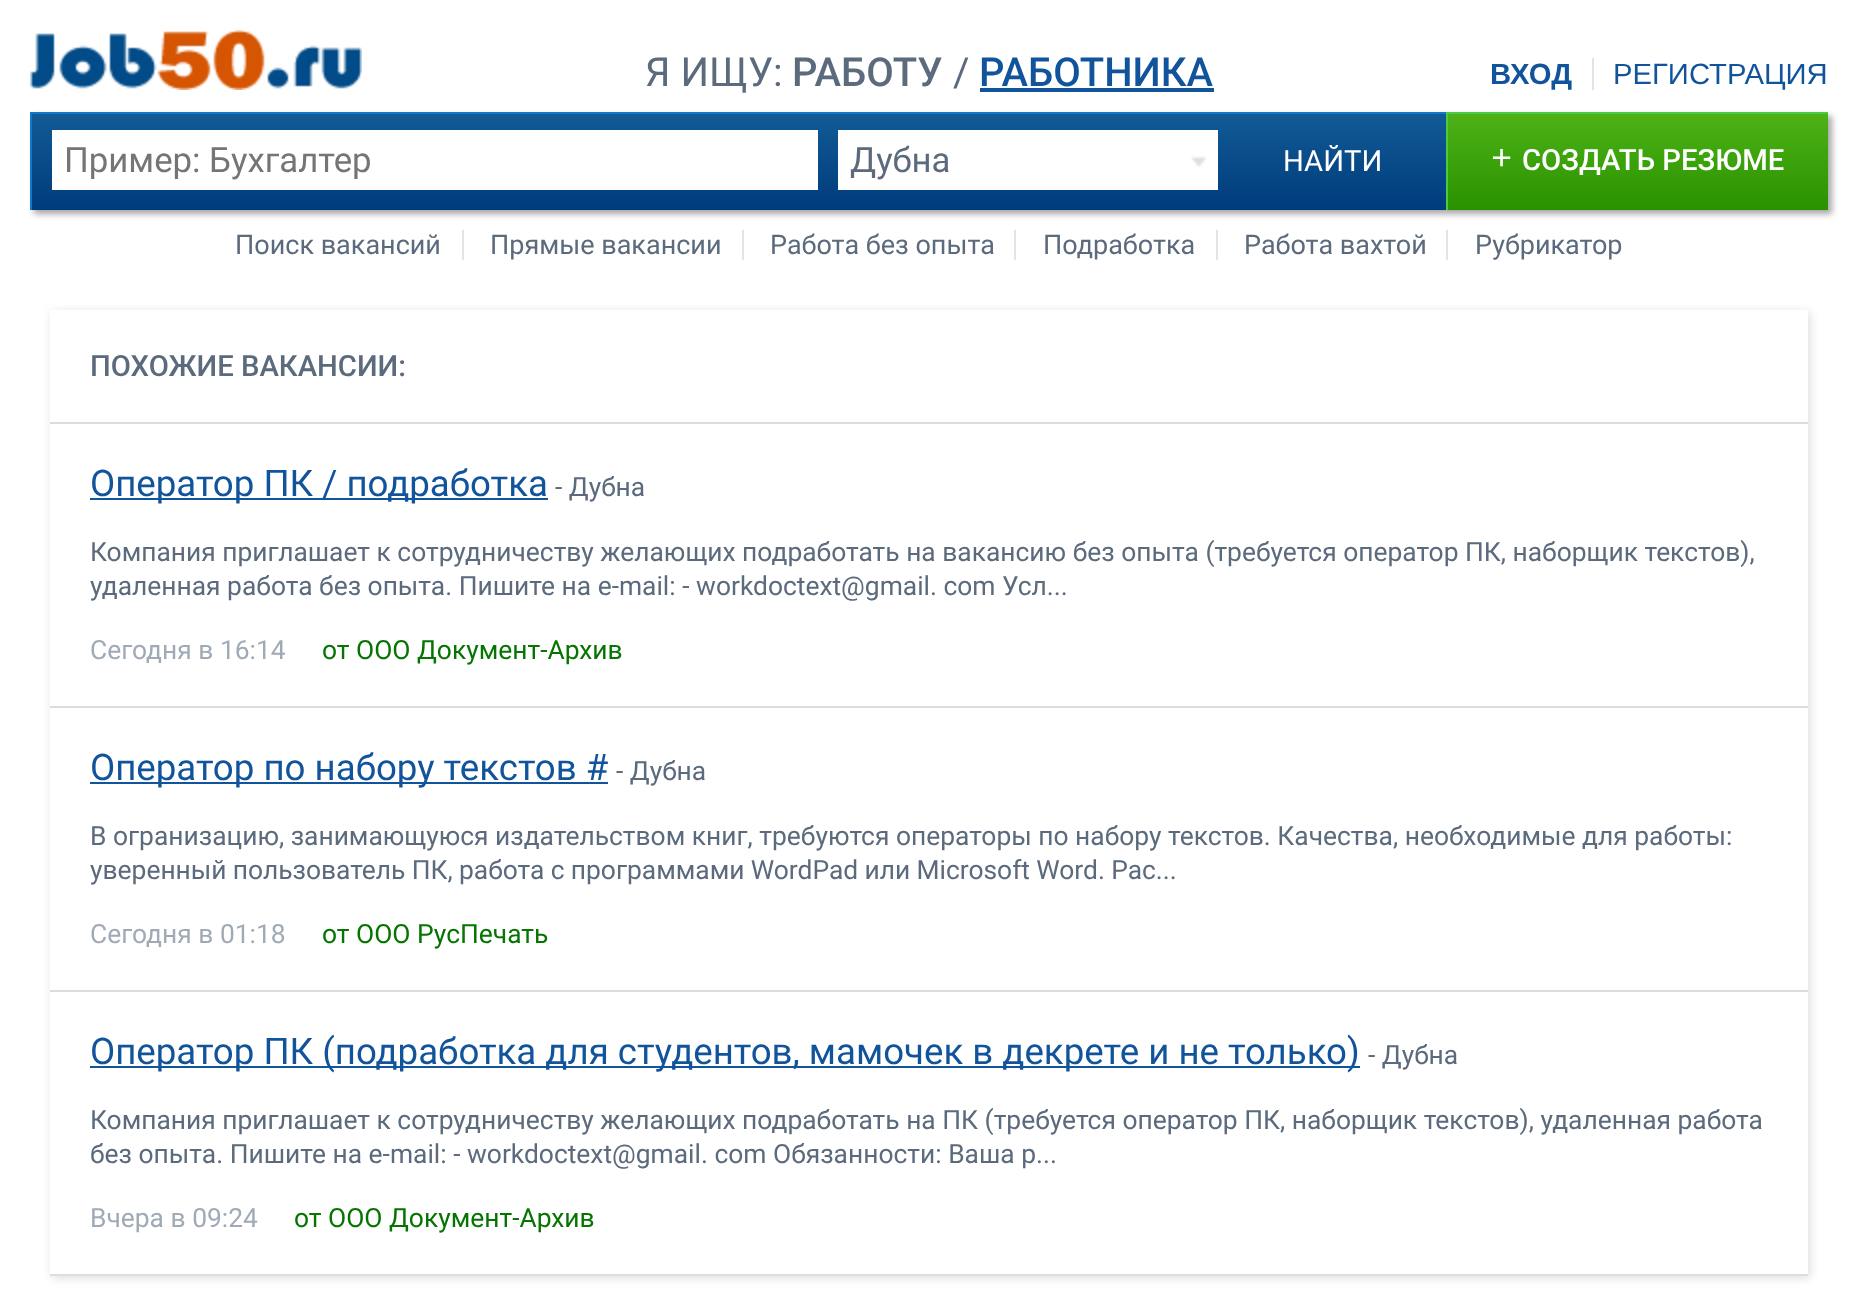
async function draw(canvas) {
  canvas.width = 1857;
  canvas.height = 1312;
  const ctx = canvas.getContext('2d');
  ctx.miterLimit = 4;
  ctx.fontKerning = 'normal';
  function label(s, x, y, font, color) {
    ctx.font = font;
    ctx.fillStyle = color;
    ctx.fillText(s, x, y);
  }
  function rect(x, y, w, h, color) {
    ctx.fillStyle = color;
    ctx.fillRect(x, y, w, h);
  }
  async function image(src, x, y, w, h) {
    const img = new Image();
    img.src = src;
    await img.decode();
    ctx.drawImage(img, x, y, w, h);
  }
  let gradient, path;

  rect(0, 0, 1857, 1312, '#fff');
  await image('assets/img1.png', 30, 30, 332, 60);
  label('Я ИЩУ:', 645, 86, '40px Roboto', '#5b6a7c');
  label('РАБОТУ', 792, 86, '500 40px Roboto', '#5b6a7c');
  label('/', 953, 86, '40px Roboto', '#5b6a7c');
  label('РАБОТНИКА', 979, 86, '500 40px Roboto', '#11549c');
  rect(980, 88, 234, 4, '#11549c');
  ctx.fillStyle = '#00000059';
  ctx.filter = 'blur(3px)';
  ctx.beginPath();
  ctx.rect(34, 116, 1798, 98);
  ctx.fill();
  ctx.filter = 'none';
  gradient = ctx.createLinearGradient(930, 114, 930, 210);
  gradient.addColorStop(0, '#115b95');
  gradient.addColorStop(1, '#003b7c');
  ctx.fillStyle = gradient;
  ctx.fillRect(32, 114, 1414, 96);
  rect(30, 112, 1416, 2, '#1478c8');
  rect(30, 112, 2, 98, '#1478c8');
  rect(52, 130, 766, 60, '#fff');
  label('Пример: Бухгалтер', 64, 172, '34.75px Roboto', '#757575');
  rect(838, 130, 380, 60, '#fff');
  label('Дубна', 850, 172, '34.75px Roboto', '#5b6a7c');
  await image('assets/img2.png', 1191, 156, 16, 11);
  label('НАЙТИ', 1283, 171, '29.25px Roboto', '#fff');
  gradient = ctx.createLinearGradient(1638, 114, 1638, 210);
  gradient.addColorStop(0, '#4db216');
  gradient.addColorStop(1, '#2a9200');
  ctx.fillStyle = gradient;
  ctx.fillRect(1448, 114, 380, 96);
  rect(1446, 112, 382, 2, '#49c944');
  rect(1446, 112, 2, 98, '#49c944');
  label('+', 1491, 170, 'bold 37px Liberation Serif', '#fff');
  label('СОЗДАТЬ РЕЗЮМЕ', 1522, 170, '500 29.25px Roboto', '#fff');
  rect(1592, 58, 2, 32, '#e4e4e4');
  label('ВХОД', 1490, 84, 'bold 29.25px Liberation Sans', '#11549c');
  label('РЕГИСТРАЦИЯ', 1613, 84, '29.25px Liberation Sans', '#11549c');
  rect(462, 230, 2, 30, '#e4e4e4');
  label('Поиск вакансий', 235, 254, '27px Roboto', '#5b6a7c');
  rect(742, 230, 2, 30, '#e4e4e4');
  label('Прямые вакансии', 490, 254, '27px Roboto', '#5b6a7c');
  rect(1014, 230, 2, 30, '#e4e4e4');
  label('Работа без опыта', 770, 254, '27px Roboto', '#5b6a7c');
  rect(1216, 230, 2, 30, '#e4e4e4');
  label('Подработка', 1043, 254, '27px Roboto', '#5b6a7c');
  rect(1446, 230, 2, 30, '#e4e4e4');
  label('Работа вахтой', 1244, 254, '27px Roboto', '#5b6a7c');
  label('Рубрикатор', 1475, 254, '27px Roboto', '#5b6a7c');
  ctx.save();
  path = new Path2D('M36 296H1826V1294H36ZM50 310H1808V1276H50Z');
  ctx.clip(path, 'evenodd');
  ctx.fillStyle = '#ddd';
  ctx.filter = 'blur(5px)';
  ctx.beginPath();
  ctx.rect(52, 312, 1758, 966);
  ctx.fill();
  ctx.filter = 'none';
  ctx.restore();
  rect(50, 422, 1758, 2, '#ddd');
  label('ПОХОЖИЕ ВАКАНСИИ:', 90, 376, '500 29.25px Roboto', '#5b6a7c');
  rect(50, 706, 1758, 2, '#ddd');
  rect(90, 498, 458, 2, '#11549c');
  label('Оператор ПК / подработка', 90, 496, '36.65px Roboto', '#11549c');
  label('- Дубна', 555, 496, '26.4px Roboto', '#5b6a7c');
  label('Компания приглашает к сотрудничеству желающих подработать на вакансию без опыта (требуется оператор ПК, наборщик текстов),', 90, 561, '26.4px Roboto', '#5b6a7c');
  label('удаленная работа без опыта. Пишите на e-mail: - workdoctext@gmail. com Усл...', 90, 595, '26.4px Roboto', '#5b6a7c');
  label('Сегодня в 16:14', 90, 659, '26.4px Roboto', '#a0aab6');
  label('от OОО Документ-Архив', 322, 659, '26.4px Roboto', '#067400');
  rect(50, 990, 1758, 2, '#ddd');
  rect(90, 782, 518, 2, '#11549c');
  label('Оператор по набору текстов #', 90, 780, '36.65px Roboto', '#11549c');
  label('- Дубна', 616, 780, '26.4px Roboto', '#5b6a7c');
  label('В огранизацию, занимающуюся издательством книг, требуются операторы по набору текстов. Качества, необходимые для работы:', 90, 845, '26.4px Roboto', '#5b6a7c');
  ctx.wordSpacing = '-0.25px';
  label('уверенный пользователь ПК, работа с программами WordPad или Microsoft Word. Рас...', 90, 879, '26.4px Roboto', '#5b6a7c');
  ctx.wordSpacing = '0px';
  label('Сегодня в 01:18', 90, 943, '26.4px Roboto', '#a0aab6');
  label('от ООО РусПечать', 322, 943, '26.4px Roboto', '#067400');
  rect(50, 1274, 1758, 2, '#ddd');
  rect(90, 1066, 1270, 2, '#11549c');
  label('Оператор ПК (подработка для студентов, мамочек в декрете и не только)', 90, 1064, '36.65px Roboto', '#11549c');
  label('- Дубна', 1368, 1064, '26.4px Roboto', '#5b6a7c');
  label('Компания приглашает к сотрудничеству желающих подработать на ПК (требуется оператор ПК, наборщик текстов), удаленная работа', 90, 1129, '26.4px Roboto', '#5b6a7c');
  label('без опыта. Пишите на e-mail: - workdoctext@gmail. com Обязанности: Ваша р...', 90, 1163, '26.4px Roboto', '#5b6a7c');
  label('Вчера в 09:24', 90, 1227, '26.4px Roboto', '#a0aab6');
  label('от OОО Документ-Архив', 294, 1227, '26.4px Roboto', '#067400');
}

draw(document.querySelector('canvas'));
